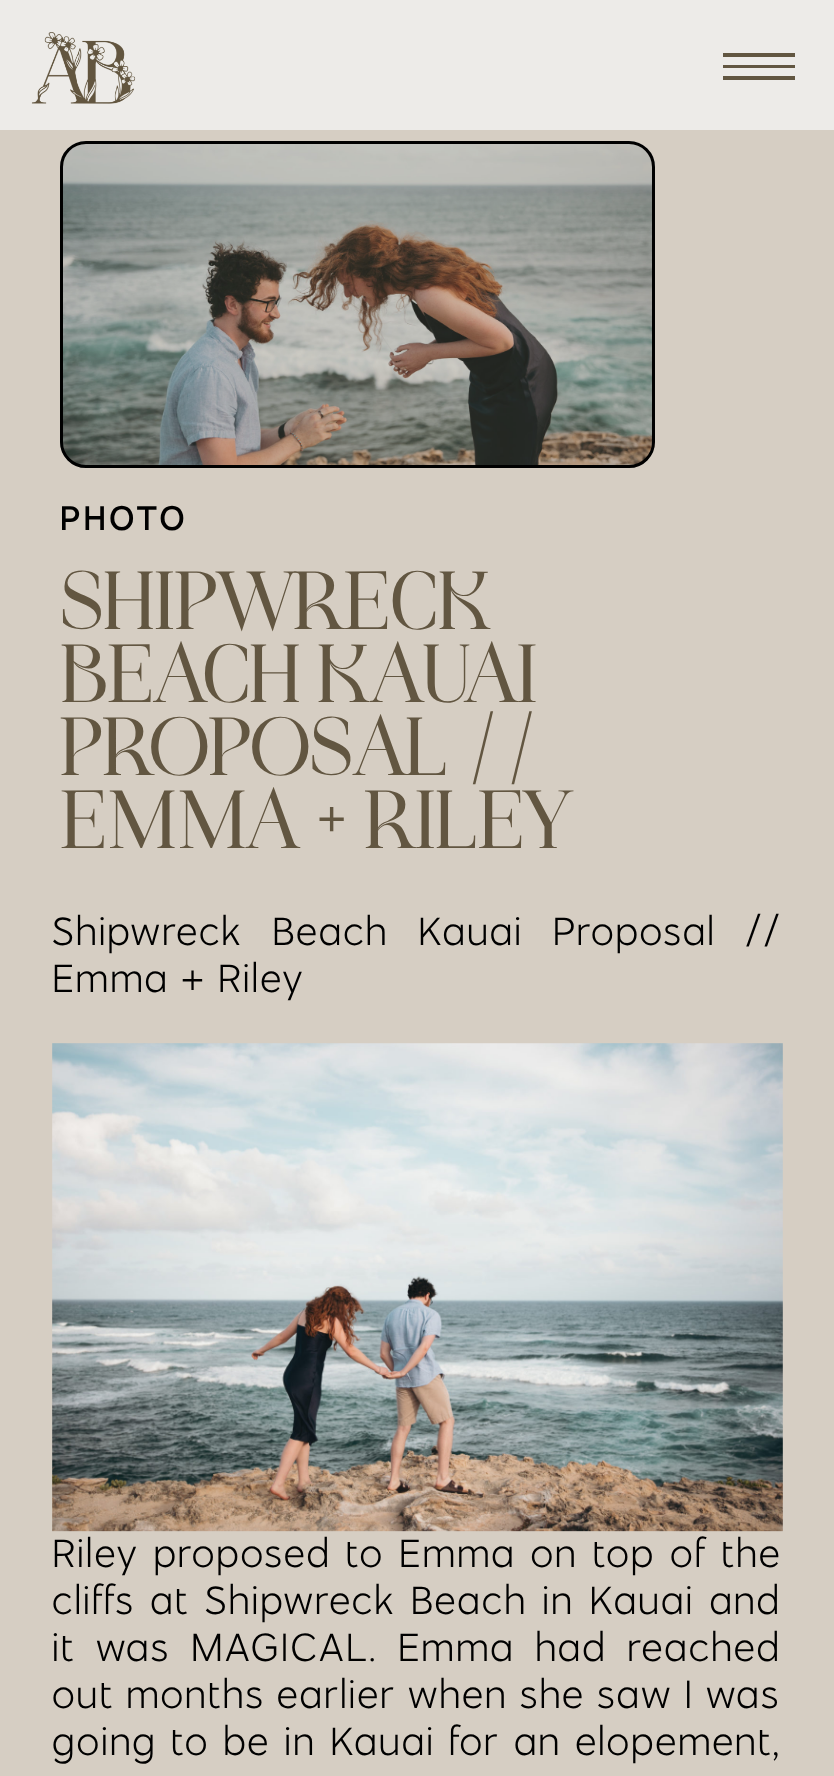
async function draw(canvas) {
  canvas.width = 834;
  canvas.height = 1776;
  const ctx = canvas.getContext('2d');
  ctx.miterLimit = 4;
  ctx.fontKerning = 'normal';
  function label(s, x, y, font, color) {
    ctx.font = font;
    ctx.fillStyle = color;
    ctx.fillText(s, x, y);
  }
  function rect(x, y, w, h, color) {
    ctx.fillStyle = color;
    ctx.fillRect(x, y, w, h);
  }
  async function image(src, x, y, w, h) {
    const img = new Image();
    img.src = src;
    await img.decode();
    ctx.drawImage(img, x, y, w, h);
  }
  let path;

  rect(0, 0, 834, 1776, '#d6cec3');
  rect(0, 0, 834, 130, '#edebe8');
  await image('assets/img1.png', 31, 32, 105, 72);
  ctx.fillStyle = '#625641';
  path = new Path2D('M723 76H795V80H723ZM723 65H795V68H723ZM723 53H795V57H723Z');
  ctx.fill(path);
  await image('assets/img2.png', 60, 141, 595, 324);
  ctx.fillStyle = '#62564140';
  ctx.beginPath();
  ctx.roundRect(61.5, 142.5, 592, 324, 24.5);
  ctx.fill();
  ctx.strokeStyle = '#000';
  ctx.lineWidth = 3;
  ctx.stroke();
  ctx.letterSpacing = '3.5px';
  label('PHOTO', 60, 530, '600 34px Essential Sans', '#000');
  ctx.letterSpacing = '0px';
  label('SHIPWRECK', 60, 629, '91.5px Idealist', '#625641');
  label('BEACH KAUAI', 60, 702, '91.5px Idealist', '#625641');
  label('PROPOSAL //', 60, 775, '91.5px Idealist', '#625641');
  label('EMMA + RILEY', 60, 848, '91.5px Idealist', '#625641');
  rect(397, 848, 12, 1, '#d6cec3');
  ctx.letterSpacing = '1.95px';
  ctx.wordSpacing = '18.5px';
  label('Shipwreck Beach Kauai Proposal //', 52, 945, '39.1px Essential Sans', '#000');
  ctx.wordSpacing = '0px';
  label('Emma + Riley', 52, 992, '39.1px Essential Sans', '#000');
  await image('assets/img3.png', 52, 1043, 731, 489);
  ctx.wordSpacing = '3.75px';
  label('Riley proposed to Emma on top of the', 52, 1567, '39.1px Essential Sans', '#000');
  ctx.wordSpacing = '4.25px';
  label('cliffs at Shipwreck Beach in Kauai and', 52, 1614, '39.1px Essential Sans', '#000');
  ctx.wordSpacing = '9.5px';
  label('it was MAGICAL. Emma had reached', 52, 1661, '39.1px Essential Sans', '#000');
  ctx.wordSpacing = '1px';
  label('out months earlier when she saw I was', 52, 1708, '39.1px Essential Sans', '#000');
  ctx.wordSpacing = '3px';
  label('going to be in Kauai for an elopement,', 52, 1755, '39.1px Essential Sans', '#000');
}

draw(document.querySelector('canvas'));
